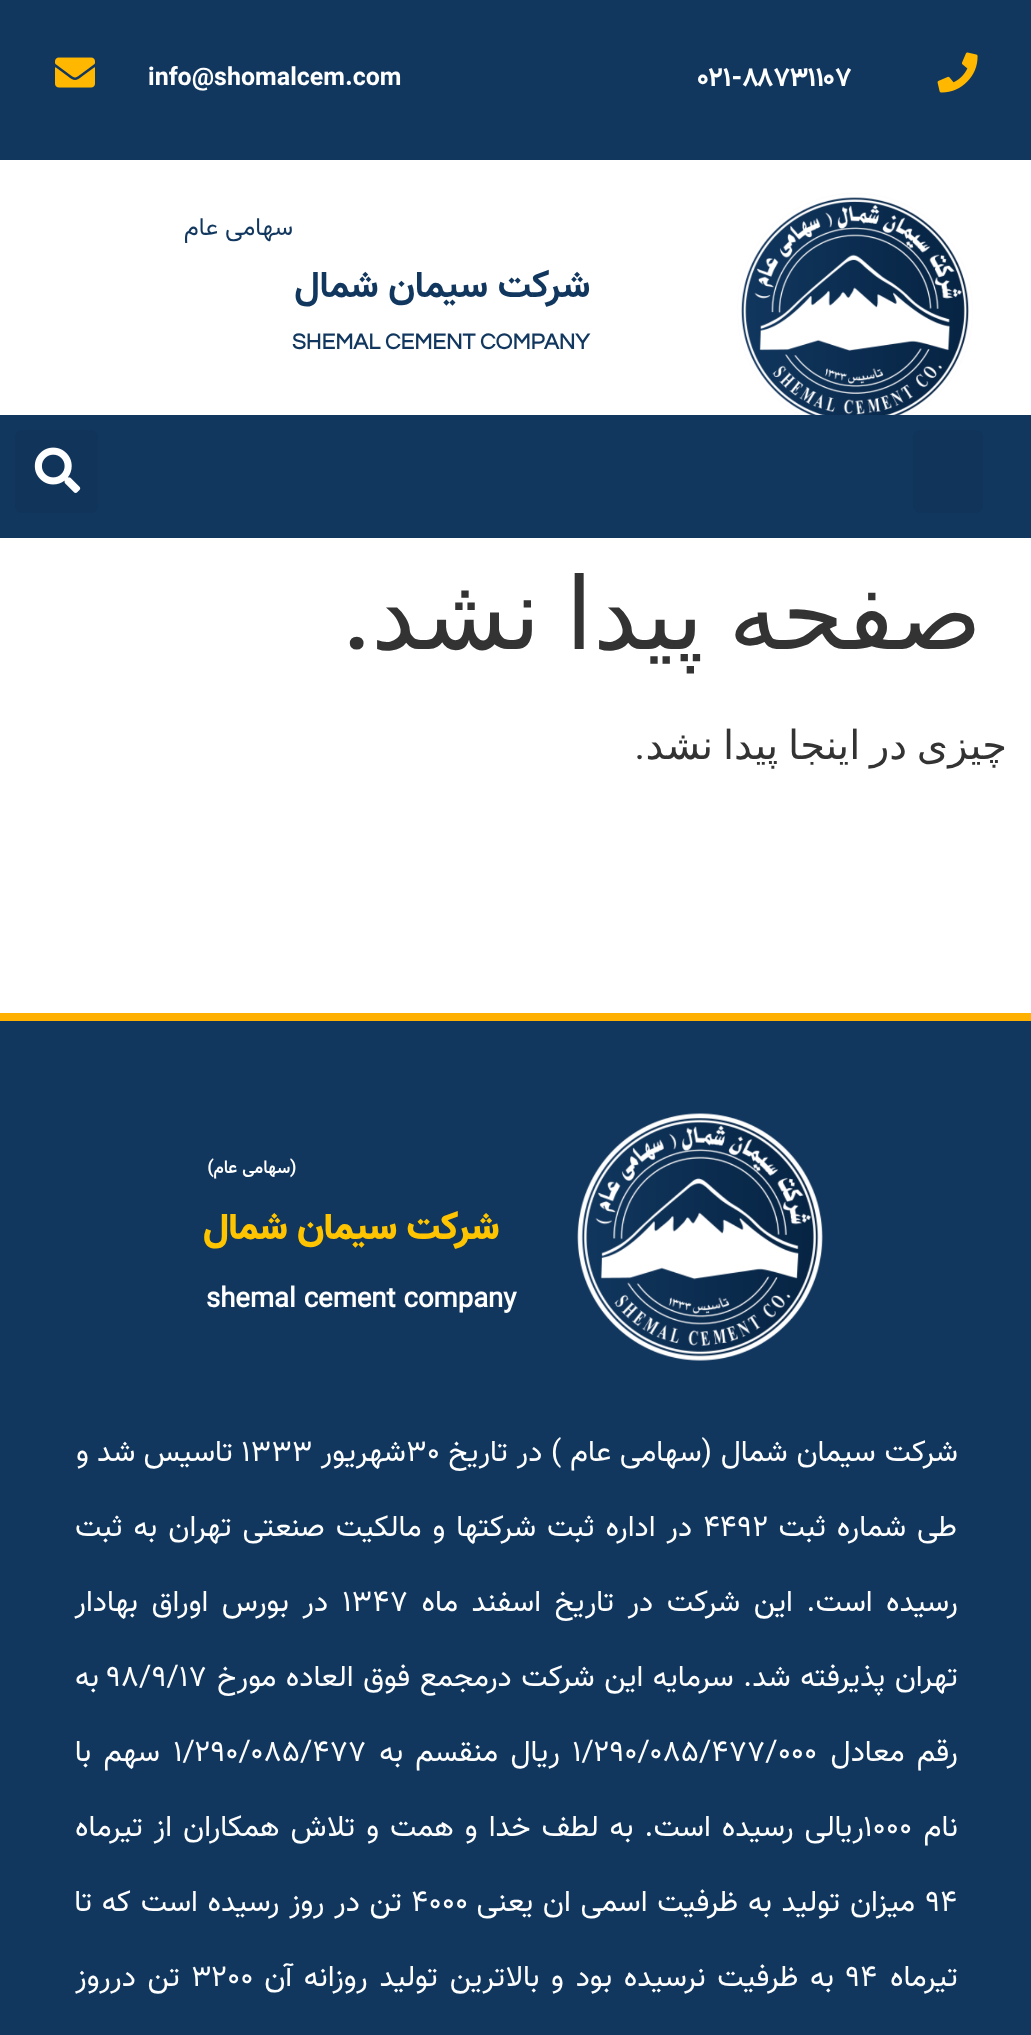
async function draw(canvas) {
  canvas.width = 1031;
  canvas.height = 2035;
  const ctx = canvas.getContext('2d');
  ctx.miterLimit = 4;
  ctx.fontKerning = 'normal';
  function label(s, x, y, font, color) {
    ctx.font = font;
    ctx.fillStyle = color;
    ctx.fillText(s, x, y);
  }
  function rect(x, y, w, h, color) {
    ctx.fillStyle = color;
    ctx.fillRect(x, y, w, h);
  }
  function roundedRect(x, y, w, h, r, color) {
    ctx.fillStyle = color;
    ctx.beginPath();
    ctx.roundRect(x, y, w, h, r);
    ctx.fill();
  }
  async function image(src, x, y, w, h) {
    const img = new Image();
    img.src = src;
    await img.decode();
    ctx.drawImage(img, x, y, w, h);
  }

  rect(0, 0, 1031, 2035, '#fff');
  rect(0, 0, 1031, 160, '#11375f');
  await image('assets/img1.png', 937, 52, 41, 41);
  label('۰۲۱-۸۸۷۳۱۱۰۷', 698, 86, 'bold 27.5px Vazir', '#fff');
  label('info@shomalcem.com', 148, 85, 'bold 25px Vazir', '#fff');
  await image('assets/img2.png', 55, 57, 40, 31);
  await image('assets/img3.png', 737, 193, 236, 222);
  ctx.direction = 'rtl';
  label('سهامی عام', 293, 235, '25px Vazir', '#11375f');
  label('شرکت سیمان شمال', 590, 297, 'bold 37.5px Vazir', '#11375f');
  ctx.direction = 'ltr';
  label('SHEMAL CEMENT COMPANY', 292, 349, 'bold 22.5px Questrial', '#11375f');
  rect(0, 415, 1031, 123, '#11375f');
  roundedRect(913, 430, 70, 83, 8, '#10345a');
  roundedRect(15, 430, 83, 83, 8, '#10345a');
  await image('assets/img4.png', 34, 447, 47, 46);
  ctx.wordSpacing = '-7px';
  ctx.direction = 'rtl';
  label('صفحه پیدا نشد', 982, 649, '100px DejaVu Sans', '#333');
  ctx.wordSpacing = '0px';
  label('.', 371, 649, '500 100px Roboto', '#333');
  ctx.wordSpacing = '-3px';
  label('چیزی در اینجا پیدا نشد', 1007, 759, '40px DejaVu Sans', '#333');
  ctx.wordSpacing = '0px';
  label('.', 645, 759, '40px Roboto', '#333');
  rect(0, 1021, 1031, 1014, '#11375f');
  rect(0, 1013, 1031, 8, '#ffb000');
  await image('assets/img5.png', 577, 1113, 246, 248);
  label('(سهامی عام)', 296, 1173, 'bold 17.5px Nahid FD', '#fff');
  label('شرکت سیمان شمال', 499, 1239, '900 37.5px Vazir', '#ffc400');
  ctx.direction = 'ltr';
  label('shemal cement company', 206, 1307, 'bold 27.5px Nahid FD', '#fff');
  ctx.wordSpacing = '0.5px';
  ctx.direction = 'rtl';
  label('شرکت سیمان شمال (سهامی عام ) در تاریخ', 958, 1461, '30px Vazir', '#fff');
  ctx.wordSpacing = '0px';
  ctx.direction = 'ltr';
  label('۳۰', 407, 1461, '30px Vazir', '#fff');
  ctx.direction = 'rtl';
  label('شهريور', 406, 1461, '30px Vazir', '#fff');
  ctx.direction = 'ltr';
  label('۱۳۳۳', 241, 1461, '30px Vazir', '#fff');
  ctx.direction = 'rtl';
  label('تاسیس شد و', 233, 1461, '30px Vazir', '#fff');
  ctx.wordSpacing = '2.75px';
  label('طی شماره ثبت', 957, 1536, '30px Vazir', '#fff');
  ctx.wordSpacing = '0px';
  ctx.direction = 'ltr';
  label('۴۴۹۲', 703, 1536, '30px Vazir', '#fff');
  ctx.wordSpacing = '2.75px';
  ctx.direction = 'rtl';
  label('در اداره ثبت شرکتها و مالکیت صنعتی تهران به ثبت', 692, 1536, '30px Vazir', '#fff');
  ctx.wordSpacing = '5.25px';
  label('رسیده است. این شرکت در تاریخ اسفند ماه', 958, 1611, '30px Vazir', '#fff');
  ctx.wordSpacing = '0px';
  ctx.direction = 'ltr';
  label('۱۳۴۷', 342, 1611, '30px Vazir', '#fff');
  ctx.wordSpacing = '5.25px';
  ctx.direction = 'rtl';
  label('در بورس اوراق بهادار', 328, 1611, '30px Vazir', '#fff');
  ctx.wordSpacing = '1.25px';
  label('تهران پذیرفته شد. سرمایه این شرکت درمجمع فوق العاده مورخ', 958, 1686, '30px Vazir', '#fff');
  ctx.wordSpacing = '0px';
  ctx.direction = 'ltr';
  label('۹۸/۹/۱۷', 108, 1686, '30px Vazir', '#fff');
  ctx.direction = 'rtl';
  label('به', 99, 1686, '30px Vazir', '#fff');
  ctx.wordSpacing = '4px';
  label('رقم معادل', 958, 1761, '30px Vazir', '#fff');
  ctx.wordSpacing = '0px';
  ctx.direction = 'ltr';
  label('۱/۲۹۰/۰۸۵/۴۷۷/۰۰۰', 572, 1761, '30px Vazir', '#fff');
  ctx.wordSpacing = '4px';
  ctx.direction = 'rtl';
  label('ریال منقسم به', 560, 1761, '30px Vazir', '#fff');
  ctx.wordSpacing = '0px';
  ctx.direction = 'ltr';
  label('۱/۲۹۰/۰۸۵/۴۷۷', 173, 1761, '30px Vazir', '#fff');
  ctx.wordSpacing = '4px';
  ctx.direction = 'rtl';
  label('سهم با', 160, 1761, '30px Vazir', '#fff');
  ctx.wordSpacing = '0px';
  label('نام', 958, 1836, '30px Vazir', '#fff');
  ctx.direction = 'ltr';
  label('۱۰۰۰', 864, 1836, '30px Vazir', '#fff');
  ctx.wordSpacing = '2.75px';
  ctx.direction = 'rtl';
  label('ریالی رسیده است. به لطف خدا و همت و تلاش همکاران از تیرماه', 864, 1836, '30px Vazir', '#fff');
  ctx.wordSpacing = '0px';
  ctx.direction = 'ltr';
  label('۹۴', 925, 1911, '30px Vazir', '#fff');
  ctx.wordSpacing = '1.5px';
  ctx.direction = 'rtl';
  label('میزان تولید به ظرفیت اسمی ان یعنی', 915, 1911, '30px Vazir', '#fff');
  ctx.wordSpacing = '0px';
  ctx.direction = 'ltr';
  label('۴۰۰۰', 412, 1911, '30px Vazir', '#fff');
  ctx.wordSpacing = '1.5px';
  ctx.direction = 'rtl';
  label('تن در روز رسیده است که تا', 402, 1911, '30px Vazir', '#fff');
  ctx.wordSpacing = '0px';
  label('تیرماه', 958, 1986, '30px Vazir', '#fff');
  ctx.direction = 'ltr';
  label('۹۴', 845, 1986, '30px Vazir', '#fff');
  ctx.wordSpacing = '3.5px';
  ctx.direction = 'rtl';
  label('به ظرفیت نرسیده بود و بالاترین تولید روزانه آن', 834, 1986, '30px Vazir', '#fff');
  ctx.wordSpacing = '0px';
  ctx.direction = 'ltr';
  label('۳۲۰۰', 191, 1986, '30px Vazir', '#fff');
  ctx.wordSpacing = '3.5px';
  ctx.direction = 'rtl';
  label('تن درروز', 180, 1986, '30px Vazir', '#fff');
}

draw(document.querySelector('canvas'));
